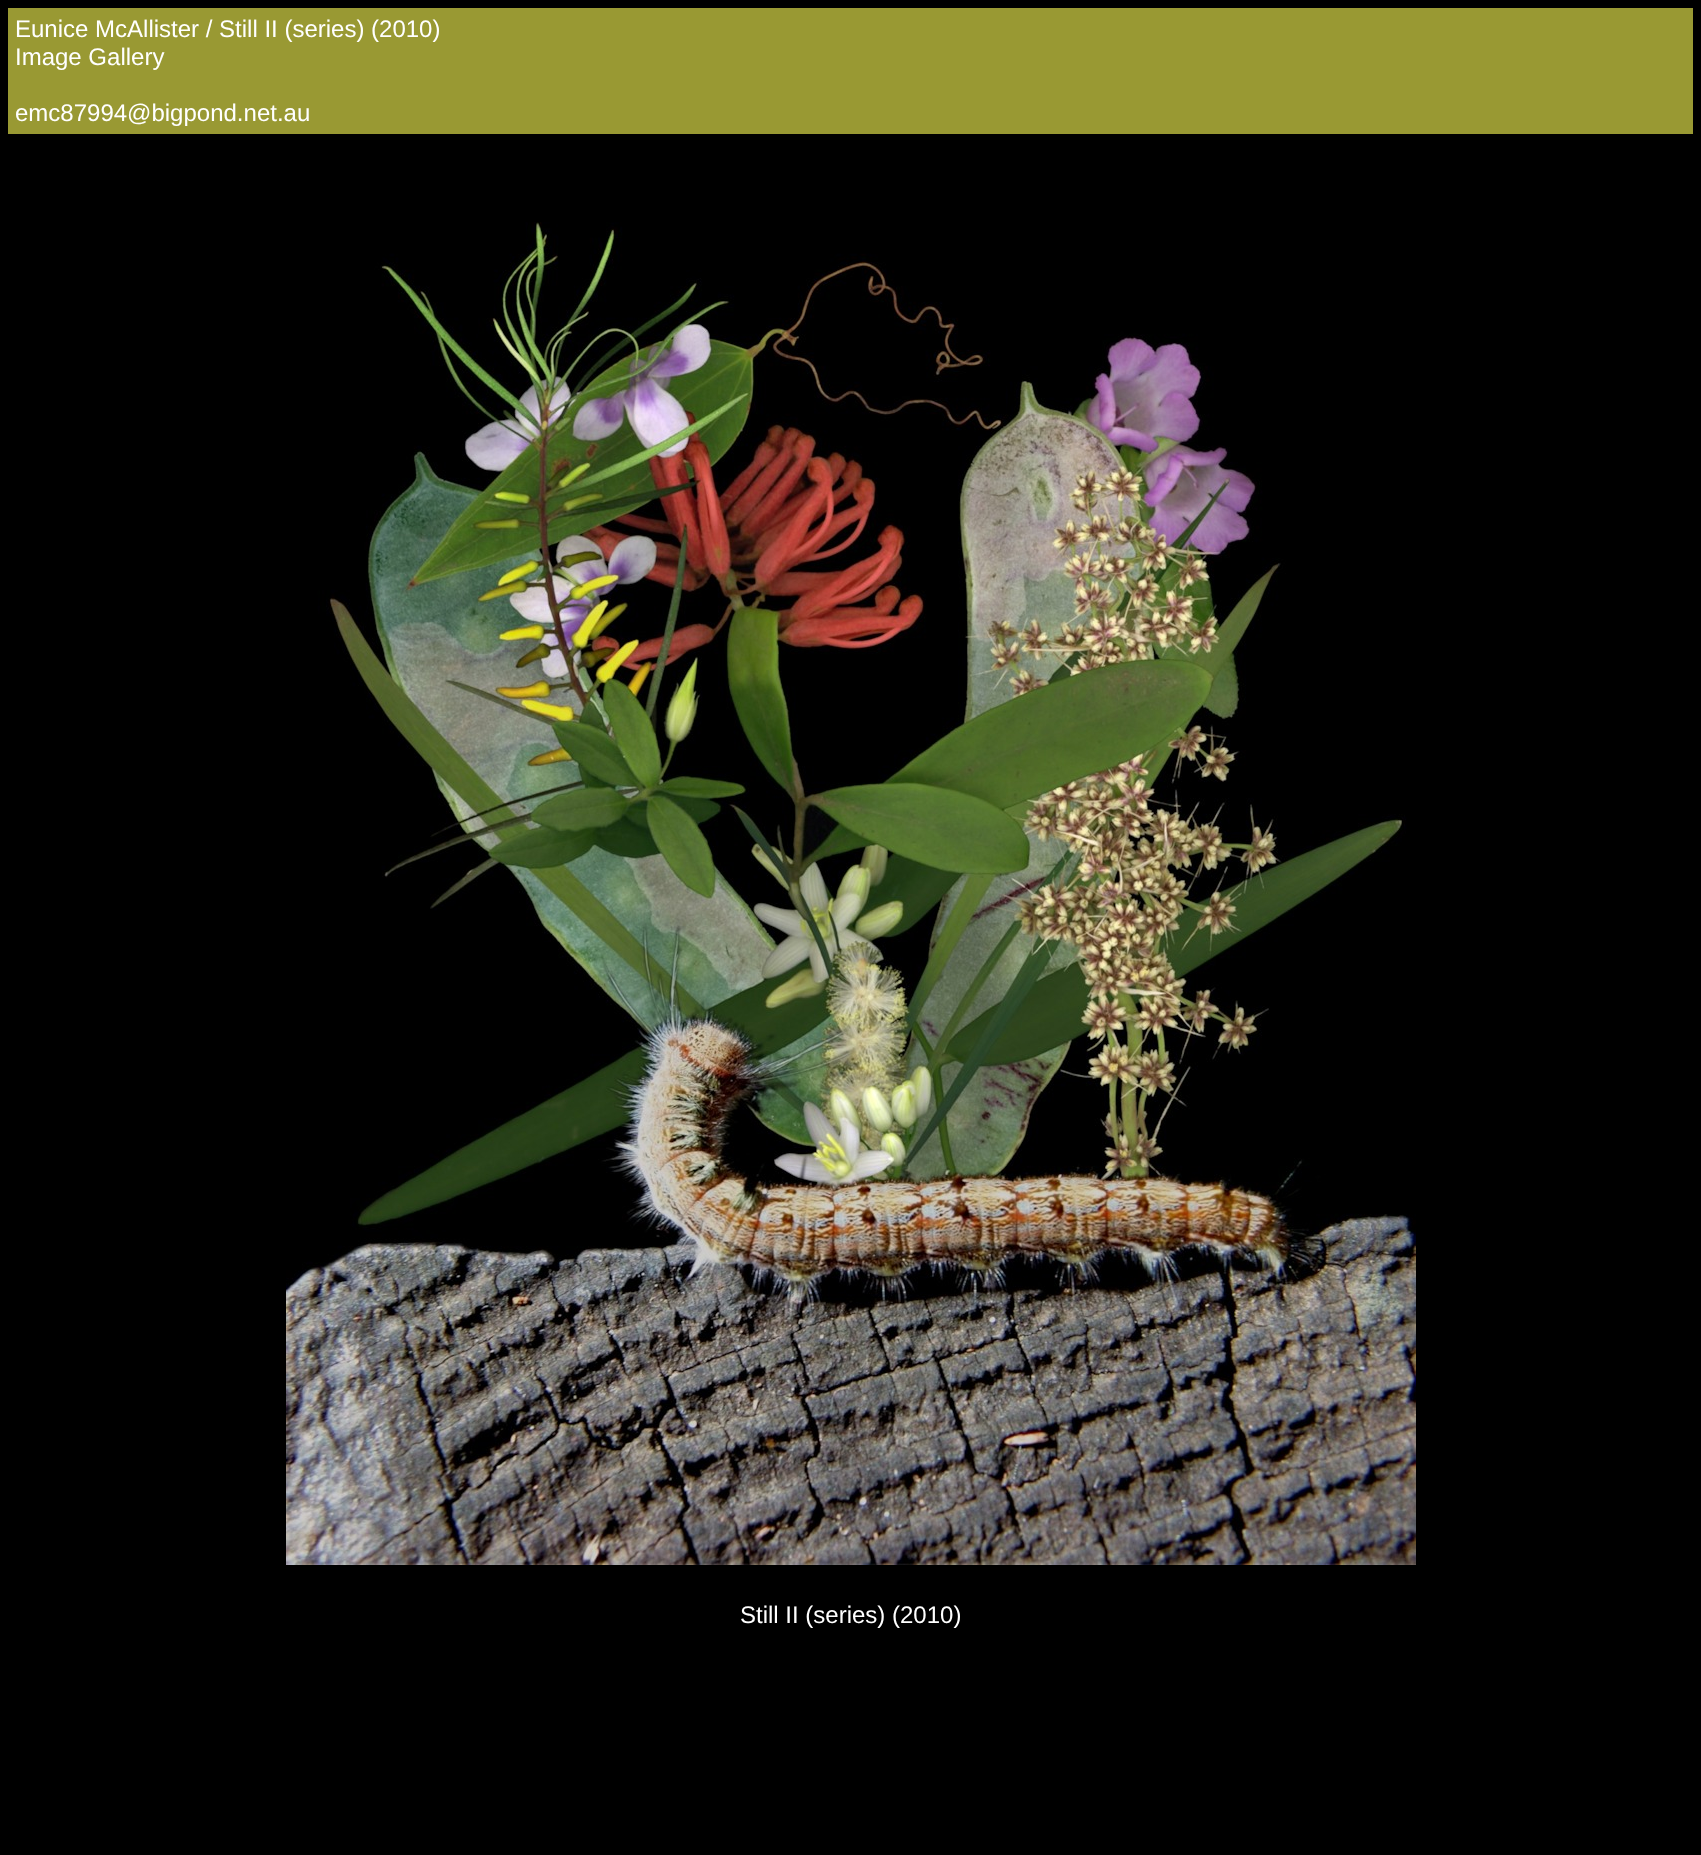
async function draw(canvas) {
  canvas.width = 1701;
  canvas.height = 1855;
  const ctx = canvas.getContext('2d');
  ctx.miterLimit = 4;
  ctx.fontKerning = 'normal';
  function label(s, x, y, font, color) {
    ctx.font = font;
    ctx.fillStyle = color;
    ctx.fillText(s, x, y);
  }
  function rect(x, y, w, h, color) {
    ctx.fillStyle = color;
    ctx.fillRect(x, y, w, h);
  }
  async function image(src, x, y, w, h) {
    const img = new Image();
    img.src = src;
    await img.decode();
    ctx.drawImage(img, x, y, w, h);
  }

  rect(0, 0, 1701, 1855, '#000');
  rect(8, 8, 1685, 126, '#993');
  label('Eunice McAllister / Still II (series) (2010)', 15, 37, '24px Liberation Sans', '#fff');
  label('Image Gallery', 15, 65, '24px Liberation Sans', '#fff');
  label('emc87994@bigpond.net.au', 15, 121, '24px Liberation Sans', '#fff');
  await image('assets/img1.png', 286, 222, 1130, 1343);
  label('Still II (series) (2010)', 740, 1623, '24px Liberation Sans', '#fff');
}

draw(document.querySelector('canvas'));
